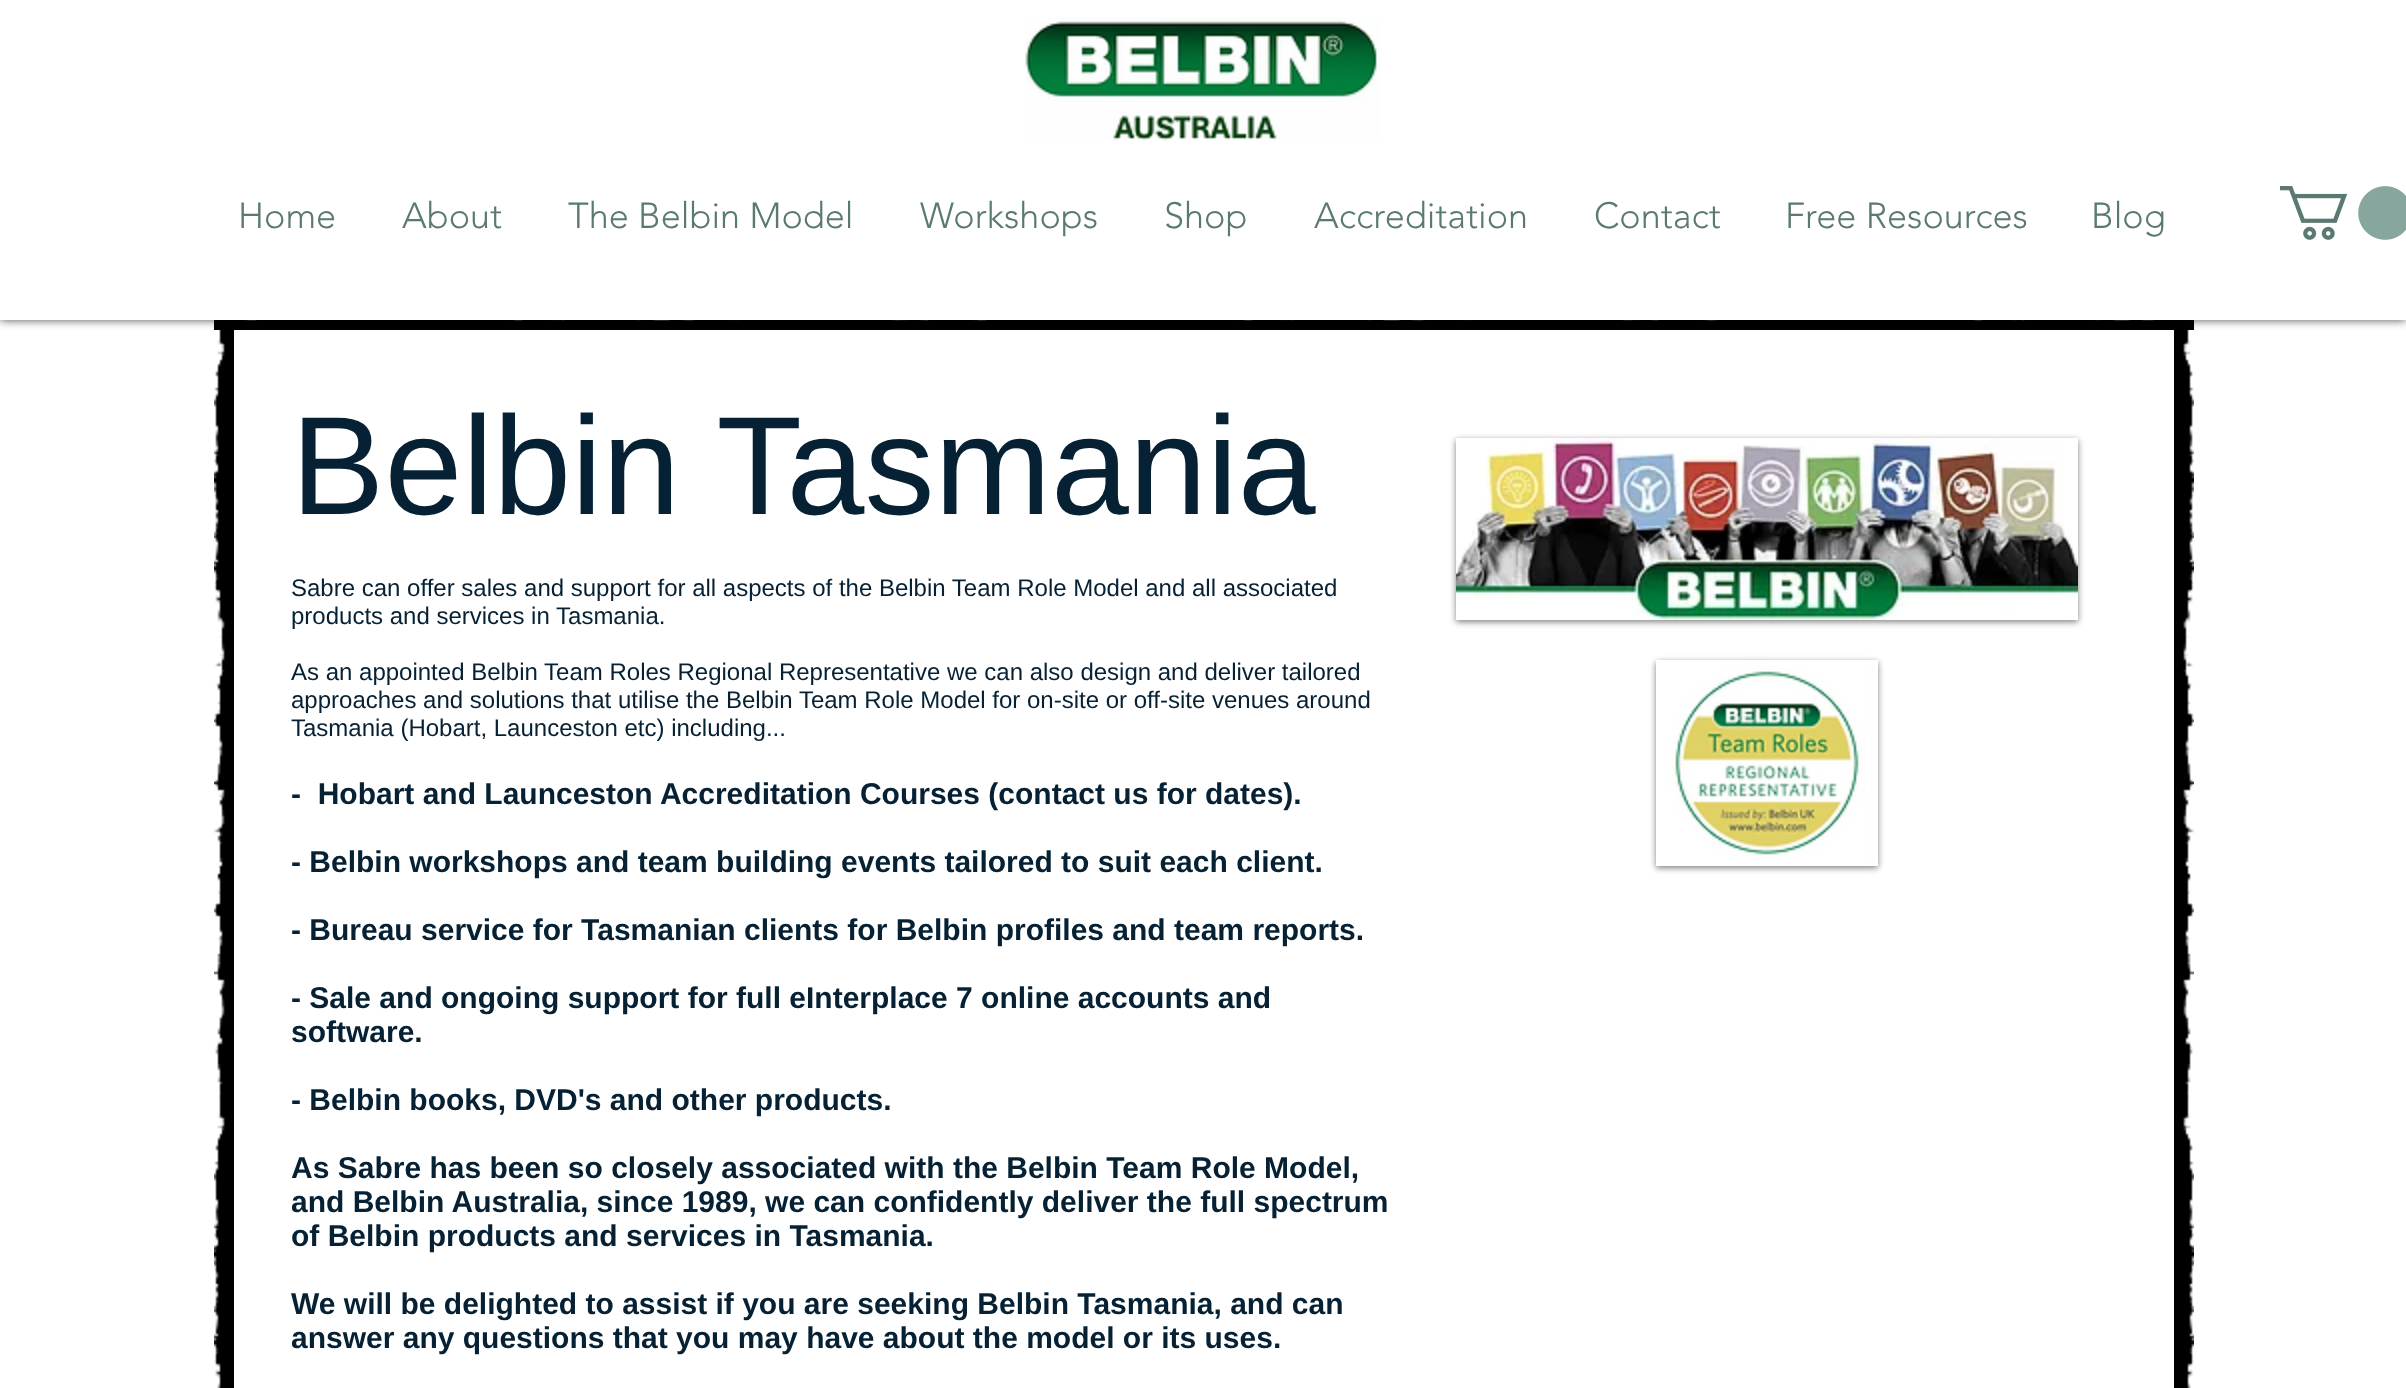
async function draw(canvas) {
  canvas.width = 2406;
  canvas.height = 1388;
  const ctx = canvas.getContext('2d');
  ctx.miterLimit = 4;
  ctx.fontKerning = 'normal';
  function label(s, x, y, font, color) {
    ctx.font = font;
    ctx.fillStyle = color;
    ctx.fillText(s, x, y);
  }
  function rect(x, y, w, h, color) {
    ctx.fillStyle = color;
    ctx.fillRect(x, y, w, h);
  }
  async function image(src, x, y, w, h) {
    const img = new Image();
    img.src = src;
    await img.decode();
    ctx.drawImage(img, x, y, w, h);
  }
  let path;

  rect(0, 0, 2406, 1388, '#fff');
  await image('assets/img3.png', 214, 320, 1980, 10);
  await image('assets/img4.png', 214, 330, 20, 1058);
  await image('assets/img5.png', 2174, 330, 20, 1058);
  ctx.fillStyle = '#000000b3';
  ctx.filter = 'blur(5px)';
  ctx.beginPath();
  ctx.rect(0, 0, 2406, 320);
  ctx.fill();
  ctx.filter = 'none';
  rect(0, 0, 2406, 320, '#fff');
  await image('assets/img1.png', 1025, 18, 355, 123);
  label('Home', 238, 228, '300 36px "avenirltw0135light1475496"', '#5a7972');
  label('About', 402, 228, '300 36px "avenirltw0135light1475496"', '#5a7972');
  label('The Belbin Model', 568, 228, '300 36px "avenirltw0135light1475496"', '#5a7972');
  label('Workshops', 920, 228, '300 36px "avenirltw0135light1475496"', '#5a7972');
  label('Shop', 1164, 228, '300 36px "avenirltw0135light1475496"', '#5a7972');
  label('Accreditation', 1314, 228, '300 36px "avenirltw0135light1475496"', '#5a7972');
  label('Contact', 1594, 228, '300 36px "avenirltw0135light1475496"', '#5a7972');
  label('Free Resources', 1785, 228, '300 36px "avenirltw0135light1475496"', '#5a7972');
  label('Blog', 2091, 228, '300 36px "avenirltw0135light1475496"', '#5a7972');
  await image('assets/img2.png', 2280, 186, 126, 54);
  label('Belbin Tasmania', 291, 514, '140px Liberation Sans', '#062134');
  label('Sabre can offer sales and support for all aspects of the Belbin Team Role Model and all associated', 291, 596, '24px Liberation Sans', '#062134');
  label('products and services in Tasmania.', 291, 624, '24px Liberation Sans', '#062134');
  label('As an appointed Belbin Team Roles Regional Representative we can also design and deliver tailored', 291, 680, '24px Liberation Sans', '#062134');
  label('approaches and solutions that utilise the Belbin Team Role Model for on-site or off-site venues around', 291, 708, '24px Liberation Sans', '#062134');
  label('Tasmania (Hobart, Launceston etc) including...', 291, 736, '24px Liberation Sans', '#062134');
  label('-  Hobart and Launceston Accreditation Courses (contact us for dates).', 291, 804, 'bold 30px Liberation Sans', '#062134');
  label('- Belbin workshops and team building events tailored to suit each client.', 291, 872, 'bold 30px Liberation Sans', '#062134');
  label('- Bureau service for Tasmanian clients for Belbin profiles and team reports.', 291, 940, 'bold 30px Liberation Sans', '#062134');
  label('- Sale and ongoing support for full eInterplace 7 online accounts and', 291, 1008, 'bold 30px Liberation Sans', '#062134');
  label('software.', 291, 1042, 'bold 30px Liberation Sans', '#062134');
  label('- Belbin books, DVD\'s and other products.', 291, 1110, 'bold 30px Liberation Sans', '#062134');
  label('As Sabre has been so closely associated with the Belbin Team Role Model,', 291, 1178, 'bold 30px Liberation Sans', '#062134');
  label('and Belbin Australia, since 1989, we can confidently deliver the full spectrum', 291, 1212, 'bold 30px Liberation Sans', '#062134');
  label('of Belbin products and services in Tasmania.', 291, 1246, 'bold 30px Liberation Sans', '#062134');
  label('We will be delighted to assist if you are seeking Belbin Tasmania, and can', 291, 1314, 'bold 30px Liberation Sans', '#062134');
  label('answer any questions that you may have about the model or its uses.', 291, 1348, 'bold 30px Liberation Sans', '#062134');
  ctx.fillStyle = '#00000080';
  ctx.filter = 'blur(3px)';
  ctx.beginPath();
  ctx.rect(1456, 440, 622, 182);
  ctx.fill();
  ctx.filter = 'none';
  await image('assets/img6.png', 1456, 438, 622, 182);
  ctx.save();
  path = new Path2D('M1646 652H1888V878H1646ZM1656 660H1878V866H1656Z');
  ctx.clip(path, 'evenodd');
  ctx.filter = 'blur(3px)';
  ctx.beginPath();
  ctx.rect(1656, 662, 222, 206);
  ctx.fill();
  ctx.filter = 'none';
  ctx.restore();
  await image('assets/img7.png', 1656, 660, 222, 206);
}

draw(document.querySelector('canvas'));
